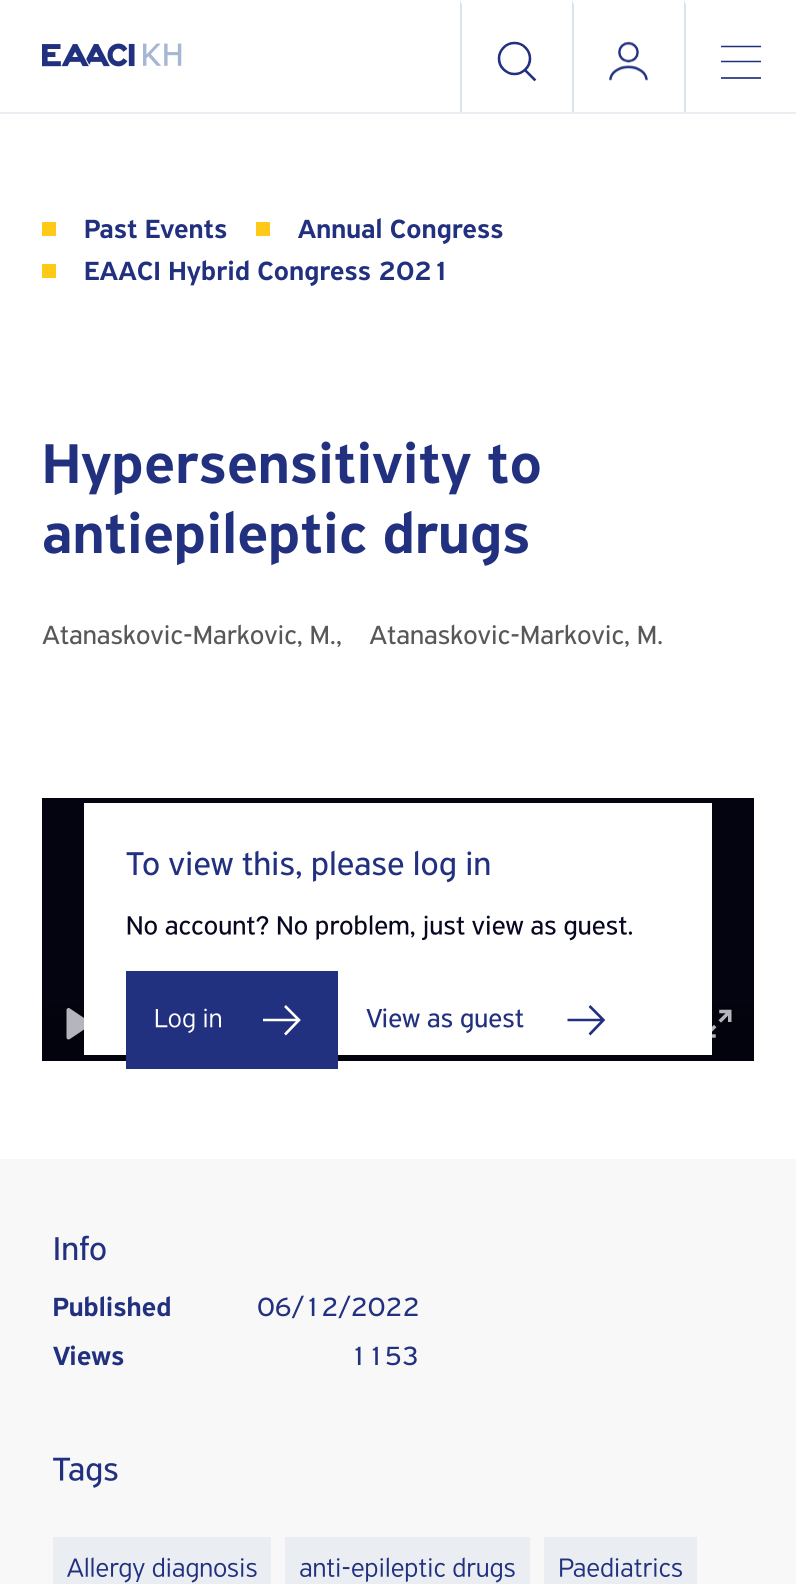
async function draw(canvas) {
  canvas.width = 796;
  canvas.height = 1584;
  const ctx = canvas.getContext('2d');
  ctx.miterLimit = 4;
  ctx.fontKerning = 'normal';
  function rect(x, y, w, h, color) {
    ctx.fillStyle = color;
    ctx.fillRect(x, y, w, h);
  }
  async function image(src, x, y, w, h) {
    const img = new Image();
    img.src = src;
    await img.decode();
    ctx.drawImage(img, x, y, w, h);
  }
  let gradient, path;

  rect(0, 0, 796, 1584, '#fff');
  rect(0, 112, 796, 2, '#eaeef2');
  await image('assets/img1.png', 42, 43, 140, 24);
  ctx.fillStyle = '#dbe2ed';
  path = new Path2D('M460 112V0L462 5V112Z');
  ctx.fill(path);
  path = new Path2D('M530 58.5C530 67 523 74 514.5 74C506 74 499 67 499 58.5C499 50 506 43 514.5 43C523 43 530 50 530 58.5Z');
  ctx.strokeStyle = '#22317f';
  ctx.lineWidth = 2.6;
  ctx.lineCap = 'round';
  ctx.lineJoin = 'round';
  ctx.stroke(path);
  path = new Path2D('M534.5 79.5L526 71');
  ctx.lineCap = 'square';
  ctx.stroke(path);
  path = new Path2D('M572 112V0L574 5V112Z');
  ctx.fill(path);
  await image('assets/img2.png', 609, 41, 39, 40);
  path = new Path2D('M684 112V0L686 5V112Z');
  ctx.fill(path);
  path = new Path2D('M721 46.5H761M721 61.5H761');
  ctx.lineWidth = 1.7;
  ctx.lineCap = 'butt';
  ctx.lineJoin = 'miter';
  ctx.stroke(path);
  rect(721, 77, 40, 2, '#435092');
  rect(42, 222, 14, 14, '#ffc917');
  await image('assets/img3.png', 85, 219, 142, 20);
  rect(256, 222, 14, 14, '#ffc917');
  await image('assets/img4.png', 298, 218, 205, 26);
  rect(42, 264, 14, 14, '#ffc917');
  await image('assets/img5.png', 85, 260, 359, 26);
  await image('assets/img6.png', 45, 441, 495, 55);
  await image('assets/img7.png', 44, 510, 484, 56);
  await image('assets/img8.png', 42, 624, 293, 23);
  await image('assets/img9.png', 337, 641, 4, 6);
  await image('assets/img10.png', 369, 624, 293, 23);
  rect(42, 798, 712, 263, '#040411');
  gradient = ctx.createLinearGradient(398, 961, 398, 1061);
  gradient.addColorStop(0, '#02020a00');
  gradient.addColorStop(1, '#02020abf');
  ctx.fillStyle = gradient;
  ctx.fillRect(42, 1005, 712, 56);
  await image('assets/img11.png', 66, 1008, 18, 32);
  await image('assets/img12.png', 712, 1009, 20, 29);
  rect(84, 803, 628, 252, '#fff');
  await image('assets/img13.png', 126, 850, 364, 33);
  await image('assets/img14.png', 127, 915, 505, 26);
  rect(126, 971, 212, 98, '#22317f');
  await image('assets/img15.png', 155, 1008, 66, 25);
  path = new Path2D('M263 1020H298.5M285 1006L299 1020L285 1034.5');
  ctx.strokeStyle = '#fff';
  ctx.lineWidth = 2.6;
  ctx.stroke(path);
  await image('assets/img16.png', 366, 1008, 158, 26);
  path = new Path2D('M567.5 1020H603M589.5 1006L603.5 1020L589.5 1034.5');
  ctx.strokeStyle = '#22317f';
  ctx.stroke(path);
  rect(0, 1159, 796, 425, '#f8f8f9');
  await image('assets/img17.png', 55, 1235, 51, 26);
  await image('assets/img18.png', 54, 1296, 116, 21);
  await image('assets/img19.png', 258, 1295, 160, 24);
  await image('assets/img20.png', 53, 1345, 71, 21);
  await image('assets/img21.png', 355, 1346, 62, 20);
  await image('assets/img22.png', 53, 1457, 65, 31);
  rect(53, 1537, 218, 47, '#eaeef2');
  await image('assets/img23.png', 67, 1557, 190, 26);
  rect(285, 1537, 245, 47, '#eaeef2');
  await image('assets/img24.png', 300, 1557, 215, 26);
  rect(544, 1537, 153, 47, '#eaeef2');
  await image('assets/img25.png', 560, 1557, 122, 20);
}

draw(document.querySelector('canvas'));
